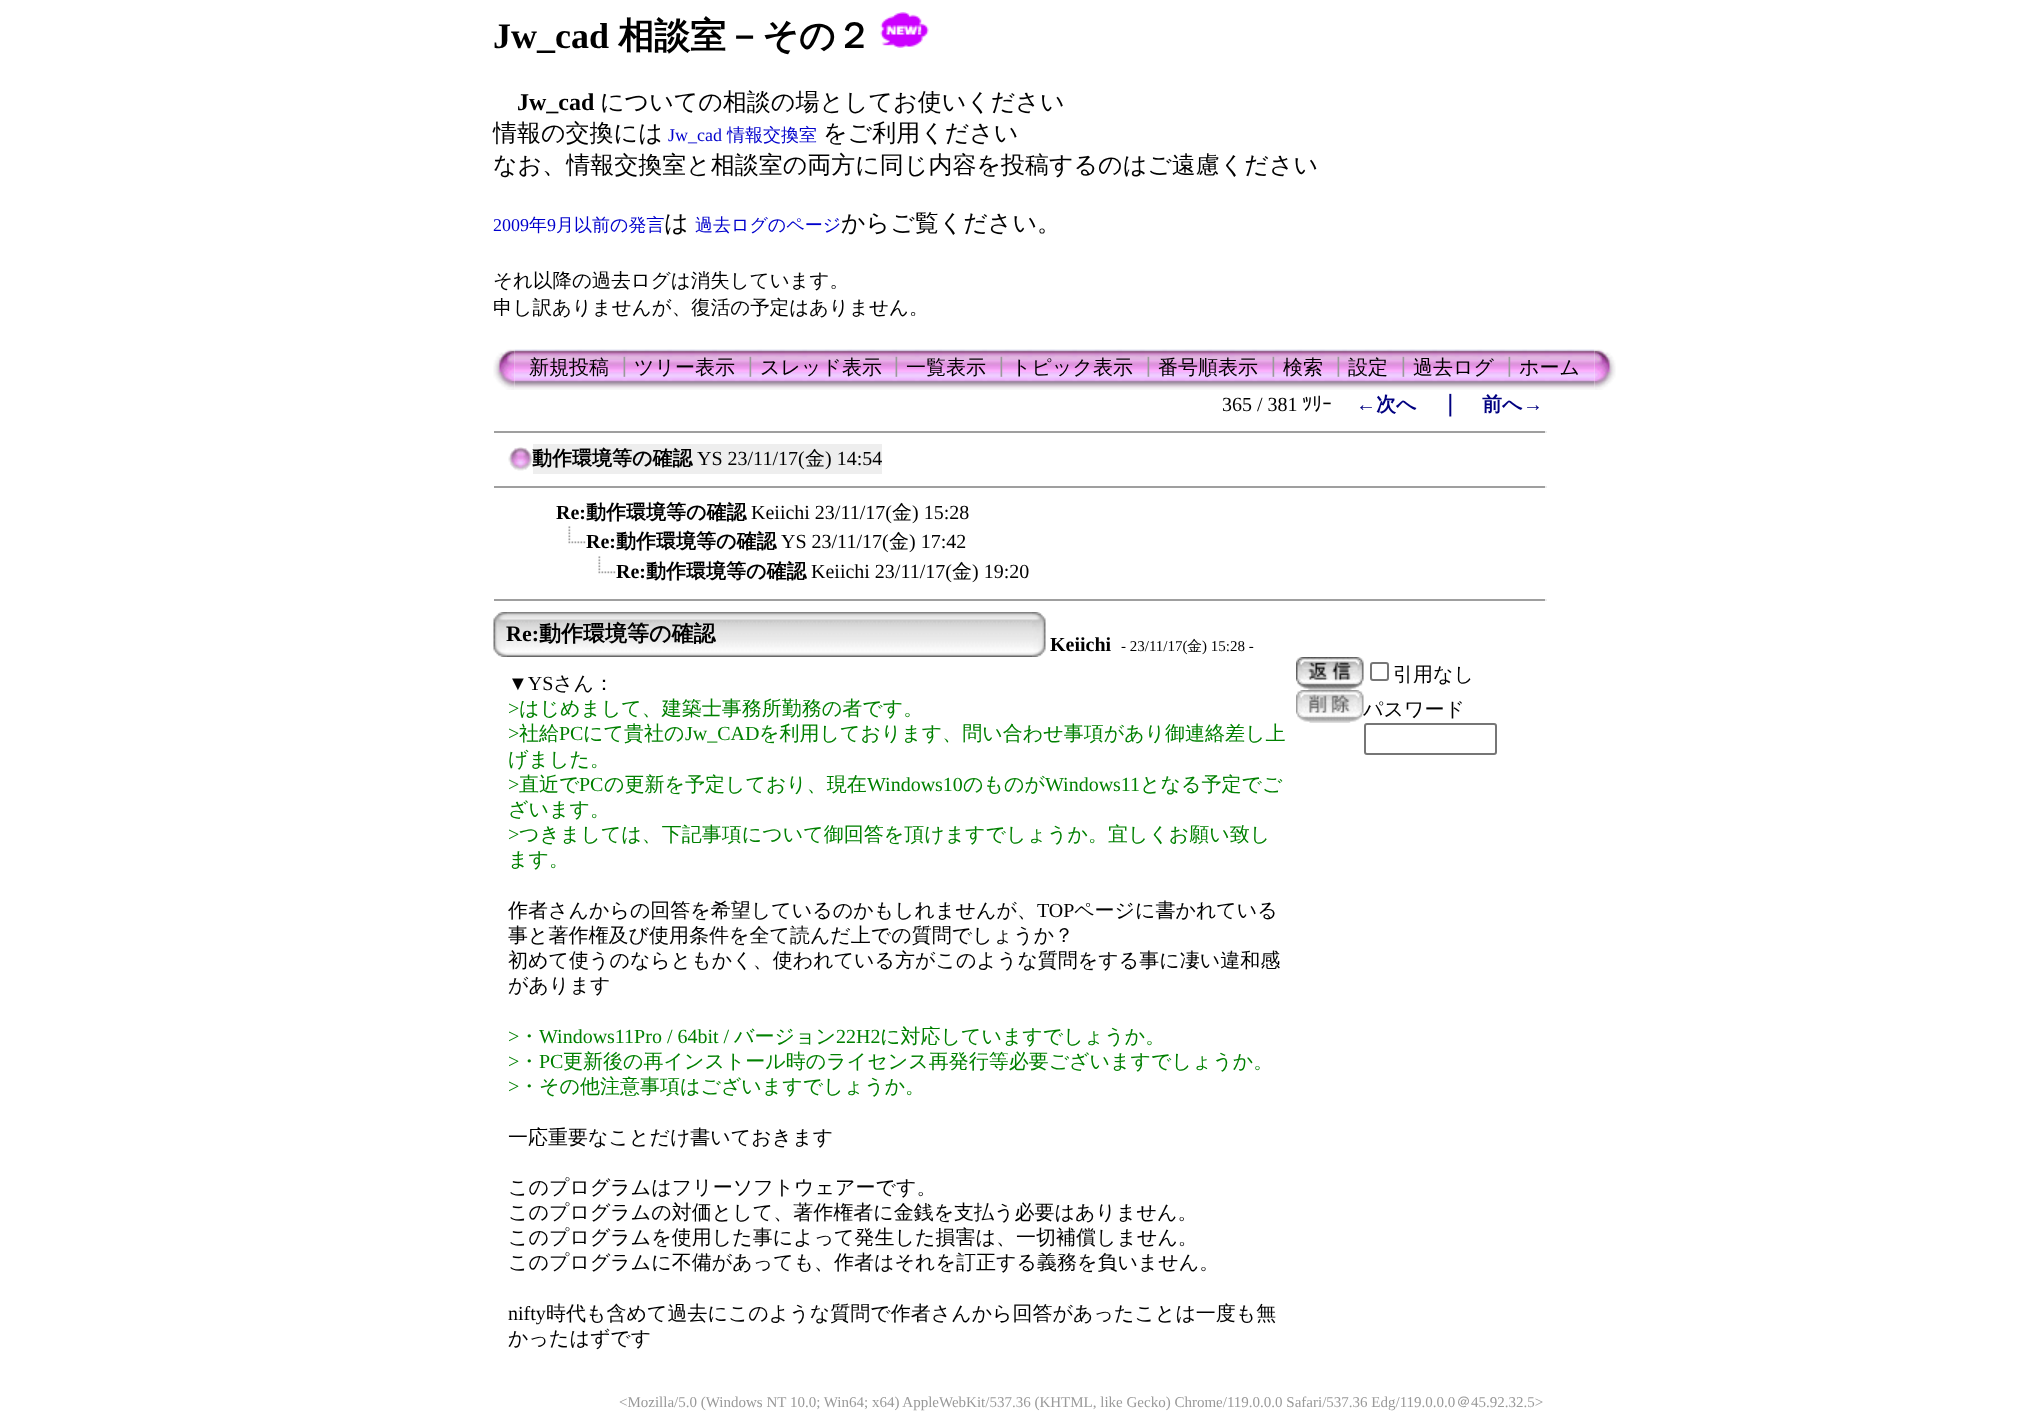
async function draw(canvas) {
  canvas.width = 2035;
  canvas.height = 1418;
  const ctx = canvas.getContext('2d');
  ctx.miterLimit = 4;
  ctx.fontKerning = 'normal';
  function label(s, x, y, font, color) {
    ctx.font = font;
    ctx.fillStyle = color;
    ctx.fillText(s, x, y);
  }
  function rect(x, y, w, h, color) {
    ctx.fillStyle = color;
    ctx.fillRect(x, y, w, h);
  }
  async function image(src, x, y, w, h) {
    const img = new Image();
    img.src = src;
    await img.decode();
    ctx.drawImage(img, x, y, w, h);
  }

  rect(0, 0, 2035, 1418, '#fff');
  label('Jw_cad', 493, 48, 'bold 36px Liberation Serif', '#000');
  label('相談室－その２', 618, 48, 'bold 36px WenQuanYi Zen Hei', '#000');
  await image('assets/img1.png', 880, 12, 49, 36);
  label('Jw_cad', 517, 110, 'bold 24px Liberation Serif', '#000');
  label('についての相談の場としてお使いください', 600, 110, '500 24px WenQuanYi Zen Hei', '#000');
  label('情報の交換には', 493, 141, '500 24px WenQuanYi Zen Hei', '#000');
  label('Jw_cad', 668, 141, '18px Liberation Serif', '#00c');
  label('情報交換室', 727, 141, '500 18px WenQuanYi Zen Hei', '#00c');
  label('をご利用ください', 823, 141, '500 24px WenQuanYi Zen Hei', '#000');
  label('なお、情報交換室と相談室の両方に同じ内容を投稿するのはご遠慮ください', 493, 173, '500 24px WenQuanYi Zen Hei', '#000');
  label('2009', 493, 231, '18px Liberation Serif', '#00c');
  label('年', 529, 231, '500 18px WenQuanYi Zen Hei', '#00c');
  label('9', 547, 231, '18px Liberation Serif', '#00c');
  label('月以前の発言', 556, 231, '500 18px WenQuanYi Zen Hei', '#00c');
  label('は', 664, 231, '500 24px WenQuanYi Zen Hei', '#000');
  label('過去ログのページ', 695, 231, '500 18px WenQuanYi Zen Hei', '#00c');
  label('からご覧ください。', 841, 231, '500 24px WenQuanYi Zen Hei', '#000');
  label('それ以降の過去ログは消失しています。', 493, 287, '500 19.5px WenQuanYi Zen Hei', '#000');
  label('申し訳ありませんが、復活の予定はありません。', 493, 314, '500 19.5px WenQuanYi Zen Hei', '#000');
  await image('assets/img3.png', 514, 349, 1081, 41);
  await image('assets/img2.png', 493, 349, 22, 41);
  label('新規投稿', 529, 374, '500 20px WenQuanYi Zen Hei', '#000');
  label('┃', 614, 374, '500 20px WenQuanYi Zen Hei', '#999');
  label('ツリー表示', 634, 374, '500 20px WenQuanYi Zen Hei', '#000');
  label('┃', 740, 374, '500 20px WenQuanYi Zen Hei', '#999');
  label('スレッド表示', 760, 374, '500 20px WenQuanYi Zen Hei', '#000');
  label('┃', 886, 374, '500 20px WenQuanYi Zen Hei', '#999');
  label('一覧表示', 906, 374, '500 20px WenQuanYi Zen Hei', '#000');
  label('┃', 991, 374, '500 20px WenQuanYi Zen Hei', '#999');
  label('トピック表示', 1011, 374, '500 20px WenQuanYi Zen Hei', '#000');
  label('┃', 1138, 374, '500 20px WenQuanYi Zen Hei', '#999');
  label('番号順表示', 1158, 374, '500 20px WenQuanYi Zen Hei', '#000');
  label('┃', 1263, 374, '500 20px WenQuanYi Zen Hei', '#999');
  label('検索', 1283, 374, '500 20px WenQuanYi Zen Hei', '#000');
  label('┃', 1328, 374, '500 20px WenQuanYi Zen Hei', '#999');
  label('設定', 1348, 374, '500 20px WenQuanYi Zen Hei', '#000');
  label('┃', 1393, 374, '500 20px WenQuanYi Zen Hei', '#999');
  label('過去ログ', 1413, 374, '500 20px WenQuanYi Zen Hei', '#000');
  label('┃', 1499, 374, '500 20px WenQuanYi Zen Hei', '#999');
  label('ホーム', 1519, 374, '500 20px WenQuanYi Zen Hei', '#000');
  await image('assets/img4.png', 1594, 349, 22, 41);
  label('365 / 381', 1222, 411, '20px Liberation Serif', '#000');
  label('ﾂﾘｰ', 1302, 411, '20px IPAPGothic', '#000');
  label('←', 1356, 411, 'bold 20px Liberation Serif', '#000080');
  label('次へ', 1376, 411, 'bold 20px WenQuanYi Zen Hei', '#000080');
  label('｜', 1439, 411, 'bold 22px WenQuanYi Zen Hei', '#000080');
  label('前へ', 1482, 411, 'bold 20px WenQuanYi Zen Hei', '#000080');
  label('→', 1523, 411, 'bold 20px Liberation Serif', '#000080');
  rect(494, 431, 1053, 2, '#9f9f9f');
  rect(1545, 431, 2, 2, '#eee');
  await image('assets/img5.png', 508, 447, 25, 24);
  rect(533, 444, 349, 30, '#eee');
  label('動作環境等の確認', 532, 465, 'bold 20px WenQuanYi Zen Hei', '#000');
  label('YS 23/11/17(', 697, 465, '20px Liberation Serif', '#000');
  label('金', 805, 465, '500 20px WenQuanYi Zen Hei', '#000');
  label(') 14:54', 825, 465, '20px Liberation Serif', '#000');
  rect(494, 486, 1053, 2, '#9f9f9f');
  rect(1545, 486, 2, 2, '#eee');
  label('Re:', 556, 519, 'bold 20px Liberation Serif', '#000');
  label('動作環境等の確認', 586, 519, 'bold 20px WenQuanYi Zen Hei', '#000');
  label('Keiichi 23/11/17(', 751, 519, '20px Liberation Serif', '#000');
  label('金', 892, 519, '500 20px WenQuanYi Zen Hei', '#000');
  label(') 15:28', 912, 519, '20px Liberation Serif', '#000');
  await image('assets/img6.png', 568, 526, 18, 18);
  label('Re:', 586, 548, 'bold 20px Liberation Serif', '#000');
  label('動作環境等の確認', 616, 548, 'bold 20px WenQuanYi Zen Hei', '#000');
  label('YS 23/11/17(', 781, 548, '20px Liberation Serif', '#000');
  label('金', 889, 548, '500 20px WenQuanYi Zen Hei', '#000');
  label(') 17:42', 909, 548, '20px Liberation Serif', '#000');
  await image('assets/img6.png', 598, 556, 18, 18);
  label('Re:', 616, 578, 'bold 20px Liberation Serif', '#000');
  label('動作環境等の確認', 646, 578, 'bold 20px WenQuanYi Zen Hei', '#000');
  label('Keiichi 23/11/17(', 811, 578, '20px Liberation Serif', '#000');
  label('金', 952, 578, '500 20px WenQuanYi Zen Hei', '#000');
  label(') 19:20', 972, 578, '20px Liberation Serif', '#000');
  rect(494, 599, 1053, 2, '#9f9f9f');
  rect(1545, 599, 2, 2, '#eee');
  await image('assets/img7.png', 493, 612, 14, 45);
  await image('assets/img8.png', 507, 612, 525, 45);
  label('Re:', 506, 641, 'bold 22px Liberation Serif', '#000');
  label('動作環境等の確認', 539, 641, 'bold 22px WenQuanYi Zen Hei', '#000');
  await image('assets/img9.png', 1032, 612, 14, 45);
  label('Keiichi', 1050, 651, 'bold 20px Liberation Serif', '#000');
  label('- 23/11/17(', 1121, 651, '15px Liberation Serif', '#000');
  label('金', 1187, 651, '500 15px WenQuanYi Zen Hei', '#000');
  label(') 15:28 -', 1202, 651, '15px Liberation Serif', '#000');
  label('▼YS', 508, 690, '20px Liberation Serif', '#000');
  label('さん：', 553, 690, '500 20px WenQuanYi Zen Hei', '#000');
  label('>', 508, 715, '20px Liberation Serif', '#008000');
  label('はじめまして、建築士事務所勤務の者です。', 519, 715, '500 20px WenQuanYi Zen Hei', '#008000');
  label('>', 508, 740, '20px Liberation Serif', '#008000');
  label('社給', 519, 740, '500 20px WenQuanYi Zen Hei', '#008000');
  label('PC', 559, 740, '20px Liberation Serif', '#008000');
  label('にて貴社の', 583, 740, '500 20px WenQuanYi Zen Hei', '#008000');
  label('Jw_CAD', 685, 740, '20px Liberation Serif', '#008000');
  label('を利用しております、問い合わせ事項があり御連絡差し上', 759, 740, '500 20px WenQuanYi Zen Hei', '#008000');
  label('げました。', 508, 766, '500 20px WenQuanYi Zen Hei', '#008000');
  label('>', 508, 791, '20px Liberation Serif', '#008000');
  label('直近で', 519, 791, '500 20px WenQuanYi Zen Hei', '#008000');
  label('PC', 579, 791, '20px Liberation Serif', '#008000');
  label('の更新を予定しており、現在', 604, 791, '500 20px WenQuanYi Zen Hei', '#008000');
  label('Windows10', 867, 791, '20px Liberation Serif', '#008000');
  label('のものが', 963, 791, '500 20px WenQuanYi Zen Hei', '#008000');
  label('Windows11', 1045, 791, '20px Liberation Serif', '#008000');
  label('となる予定でご', 1140, 791, '500 20px WenQuanYi Zen Hei', '#008000');
  label('ざいます。', 508, 816, '500 20px WenQuanYi Zen Hei', '#008000');
  label('>', 508, 841, '20px Liberation Serif', '#008000');
  label('つきましては、下記事項について御回答を頂けますでしょうか。宜しくお願い致し', 519, 841, '500 20px WenQuanYi Zen Hei', '#008000');
  label('ます。', 508, 866, '500 20px WenQuanYi Zen Hei', '#008000');
  label('作者さんからの回答を希望しているのかもしれませんが、', 508, 917, '500 20px WenQuanYi Zen Hei', '#000');
  label('TOP', 1037, 917, '20px Liberation Serif', '#000');
  label('ページに書かれている', 1074, 917, '500 20px WenQuanYi Zen Hei', '#000');
  label('事と著作権及び使用条件を全て読んだ上での質問でしょうか？', 508, 942, '500 20px WenQuanYi Zen Hei', '#000');
  label('初めて使うのならともかく、使われている方がこのような質問をする事に凄い違和感', 508, 967, '500 20px WenQuanYi Zen Hei', '#000');
  label('があります', 508, 992, '500 20px WenQuanYi Zen Hei', '#000');
  label('>', 508, 1043, '20px Liberation Serif', '#008000');
  label('・', 519, 1043, '500 20px WenQuanYi Zen Hei', '#008000');
  label('Windows11Pro / 64bit /', 539, 1043, '20px Liberation Serif', '#008000');
  label('バージョン', 734, 1043, '500 20px WenQuanYi Zen Hei', '#008000');
  label('22H2', 836, 1043, '20px Liberation Serif', '#008000');
  label('に対応していますでしょうか。', 880, 1043, '500 20px WenQuanYi Zen Hei', '#008000');
  label('>', 508, 1068, '20px Liberation Serif', '#008000');
  label('・', 519, 1068, '500 20px WenQuanYi Zen Hei', '#008000');
  label('PC', 539, 1068, '20px Liberation Serif', '#008000');
  label('更新後の再インストール時のライセンス再発行等必要ございますでしょうか。', 563, 1068, '500 20px WenQuanYi Zen Hei', '#008000');
  label('>', 508, 1093, '20px Liberation Serif', '#008000');
  label('・その他注意事項はございますでしょうか。', 519, 1093, '500 20px WenQuanYi Zen Hei', '#008000');
  label('一応重要なことだけ書いておきます', 508, 1144, '500 20px WenQuanYi Zen Hei', '#000');
  label('このプログラムはフリーソフトウェアーです。', 508, 1194, '500 20px WenQuanYi Zen Hei', '#000');
  label('このプログラムの対価として、著作権者に金銭を支払う必要はありません。', 508, 1219, '500 20px WenQuanYi Zen Hei', '#000');
  label('このプログラムを使用した事によって発生した損害は、一切補償しません。', 508, 1244, '500 20px WenQuanYi Zen Hei', '#000');
  label('このプログラムに不備があっても、作者はそれを訂正する義務を負いません。', 508, 1269, '500 20px WenQuanYi Zen Hei', '#000');
  label('nifty', 508, 1320, '20px Liberation Serif', '#000');
  label('時代も含めて過去にこのような質問で作者さんから回答があったことは一度も無', 546, 1320, '500 20px WenQuanYi Zen Hei', '#000');
  label('かったはずです', 508, 1345, '500 20px WenQuanYi Zen Hei', '#000');
  await image('assets/img10.png', 1296, 657, 68, 33);
  ctx.beginPath();
  ctx.roundRect(1371, 663, 17, 17, 2);
  ctx.strokeStyle = '#767676';
  ctx.lineWidth = 2;
  ctx.stroke();
  label('引用なし', 1393, 681, '500 20px WenQuanYi Zen Hei', '#000');
  await image('assets/img11.png', 1296, 690, 68, 33);
  label('パスワード', 1363, 716, '500 20px WenQuanYi Zen Hei', '#000');
  ctx.beginPath();
  ctx.roundRect(1365, 724, 131, 30, 2);
  ctx.stroke();
  label('<Mozilla/5.0 (Windows NT 10.0; Win64; x64) AppleWebKit/537.36 (KHTML, like Gecko) Chrome/119.0.0.0 Safari/537.36 Edg/119.0.0.0', 619, 1407, '15px Liberation Serif', '#999');
  label('＠', 1456, 1407, '500 15px WenQuanYi Zen Hei', '#999');
  label('45.92.32.5>', 1471, 1407, '15px Liberation Serif', '#999');
}

draw(document.querySelector('canvas'));
